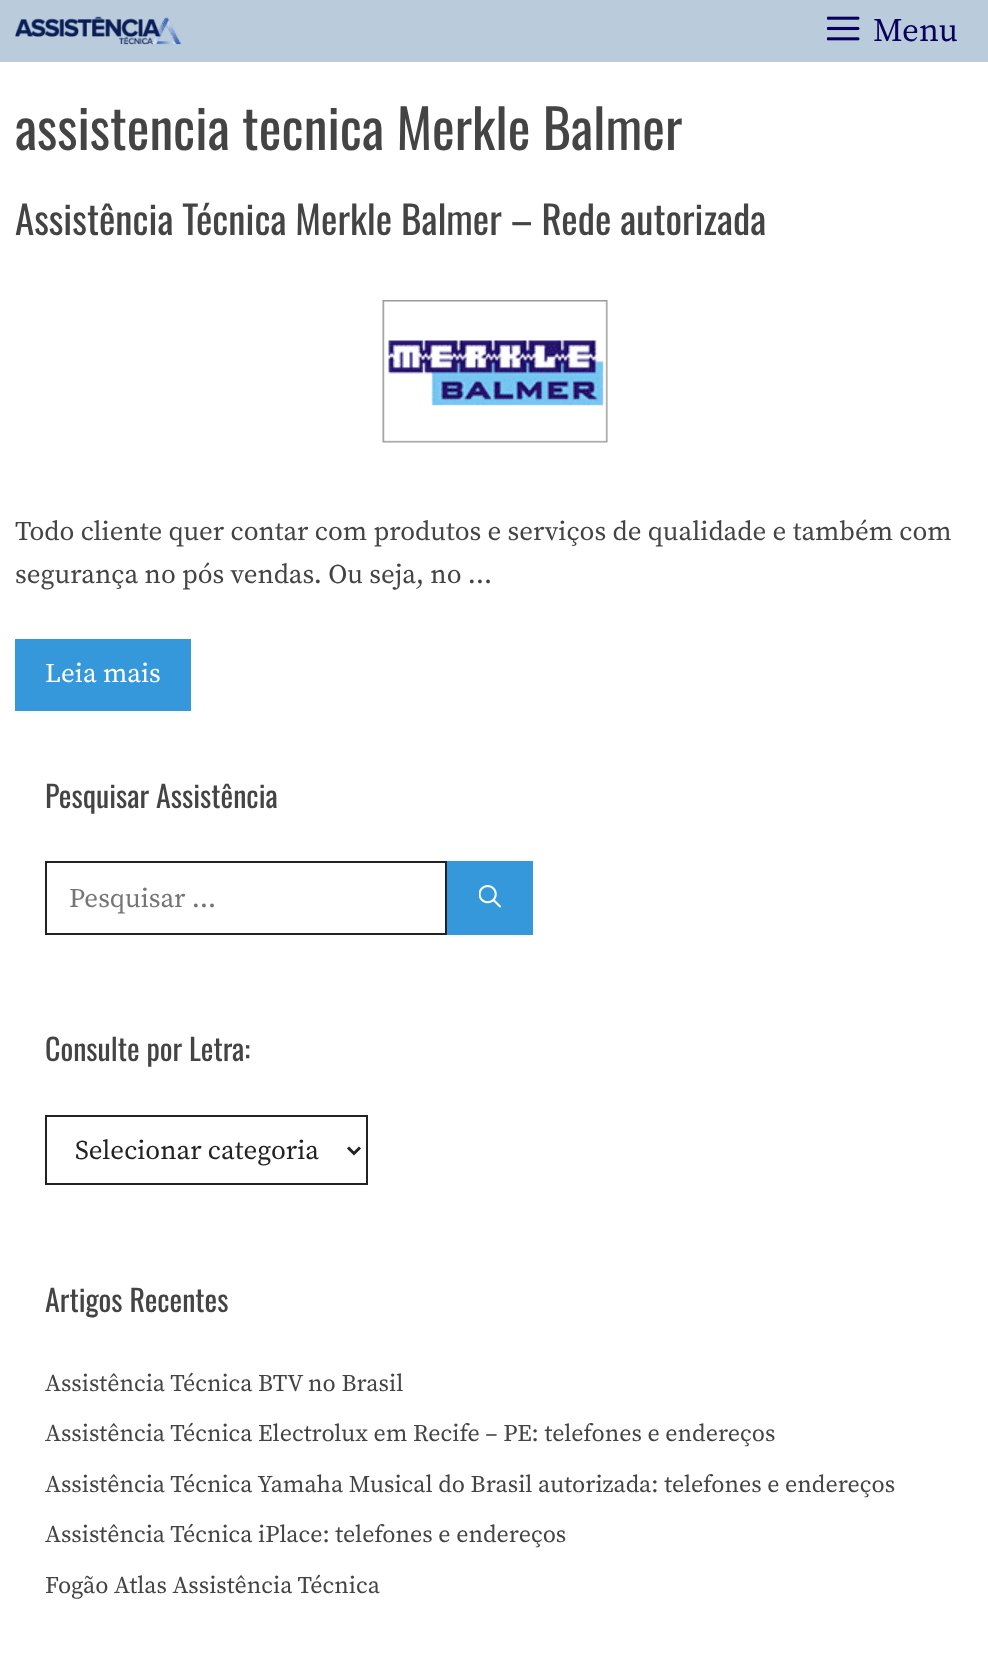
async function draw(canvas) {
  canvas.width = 988;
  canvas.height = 1669;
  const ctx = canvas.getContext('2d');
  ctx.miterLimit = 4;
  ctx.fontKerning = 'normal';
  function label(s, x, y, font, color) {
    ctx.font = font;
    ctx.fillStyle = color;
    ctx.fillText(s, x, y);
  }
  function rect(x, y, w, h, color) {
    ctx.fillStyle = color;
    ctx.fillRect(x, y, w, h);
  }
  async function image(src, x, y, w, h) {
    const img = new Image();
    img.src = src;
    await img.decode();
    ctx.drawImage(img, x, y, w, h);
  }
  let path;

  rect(0, 0, 988, 1669, '#fff');
  rect(0, 0, 988, 62, '#baccdb');
  await image('assets/img1.png', 15, 16, 166, 29);
  await image('assets/img2.png', 827, 16, 33, 25);
  label('Menu', 873, 41, '33px Source Serif Pro', '#09005e');
  label('assistencia tecnica Merkle Balmer', 15, 150, '54px Oswald', '#444');
  label('Assistência Técnica Merkle Balmer – Rede autorizada', 15, 235, '39px Oswald', '#444');
  await image('assets/img3.png', 382, 300, 226, 143);
  label('Todo cliente quer contar com produtos e serviços de qualidade e também com', 15, 540, '27px Source Serif Pro', '#444');
  label('segurança no pós vendas. Ou seja, no …', 15, 583, '27px Source Serif Pro', '#444');
  rect(15, 639, 176, 72, '#3498db');
  label('Leia mais', 45, 682, '27px Source Serif Pro', '#fff');
  label('Pesquisar Assistência', 45, 808, '30px Oswald', '#444');
  ctx.strokeStyle = '#222';
  ctx.lineWidth = 2;
  ctx.strokeRect(46, 862, 400, 72);
  label('Pesquisar …', 69, 907, '27px Source Serif Pro', '#757575');
  rect(447, 861, 86, 74, '#3498db');
  await image('assets/img4.png', 479, 885, 22, 23);
  label('Consulte por Letra:', 45, 1061, '30px Oswald', '#444');
  ctx.strokeRect(46, 1116, 321, 68);
  path = new Path2D('M348 1147.5L354 1153.5L360 1147.5');
  ctx.lineWidth = 3;
  ctx.stroke(path);
  label('Selecionar categoria', 75, 1159, '27px Source Serif Pro', '#222');
  label('Artigos Recentes', 45, 1312, '30px Oswald', '#444');
  label('Assistência Técnica BTV no Brasil', 45, 1391, '24px Source Serif Pro', '#444');
  label('Assistência Técnica Electrolux em Recife – PE: telefones e endereços', 45, 1441, '24px Source Serif Pro', '#444');
  label('Assistência Técnica Yamaha Musical do Brasil autorizada: telefones e endereços', 45, 1492, '24px Source Serif Pro', '#444');
  label('Assistência Técnica iPlace: telefones e endereços', 45, 1542, '24px Source Serif Pro', '#444');
  label('Fogão Atlas Assistência Técnica', 45, 1593, '24px Source Serif Pro', '#444');
}

draw(document.querySelector('canvas'));
